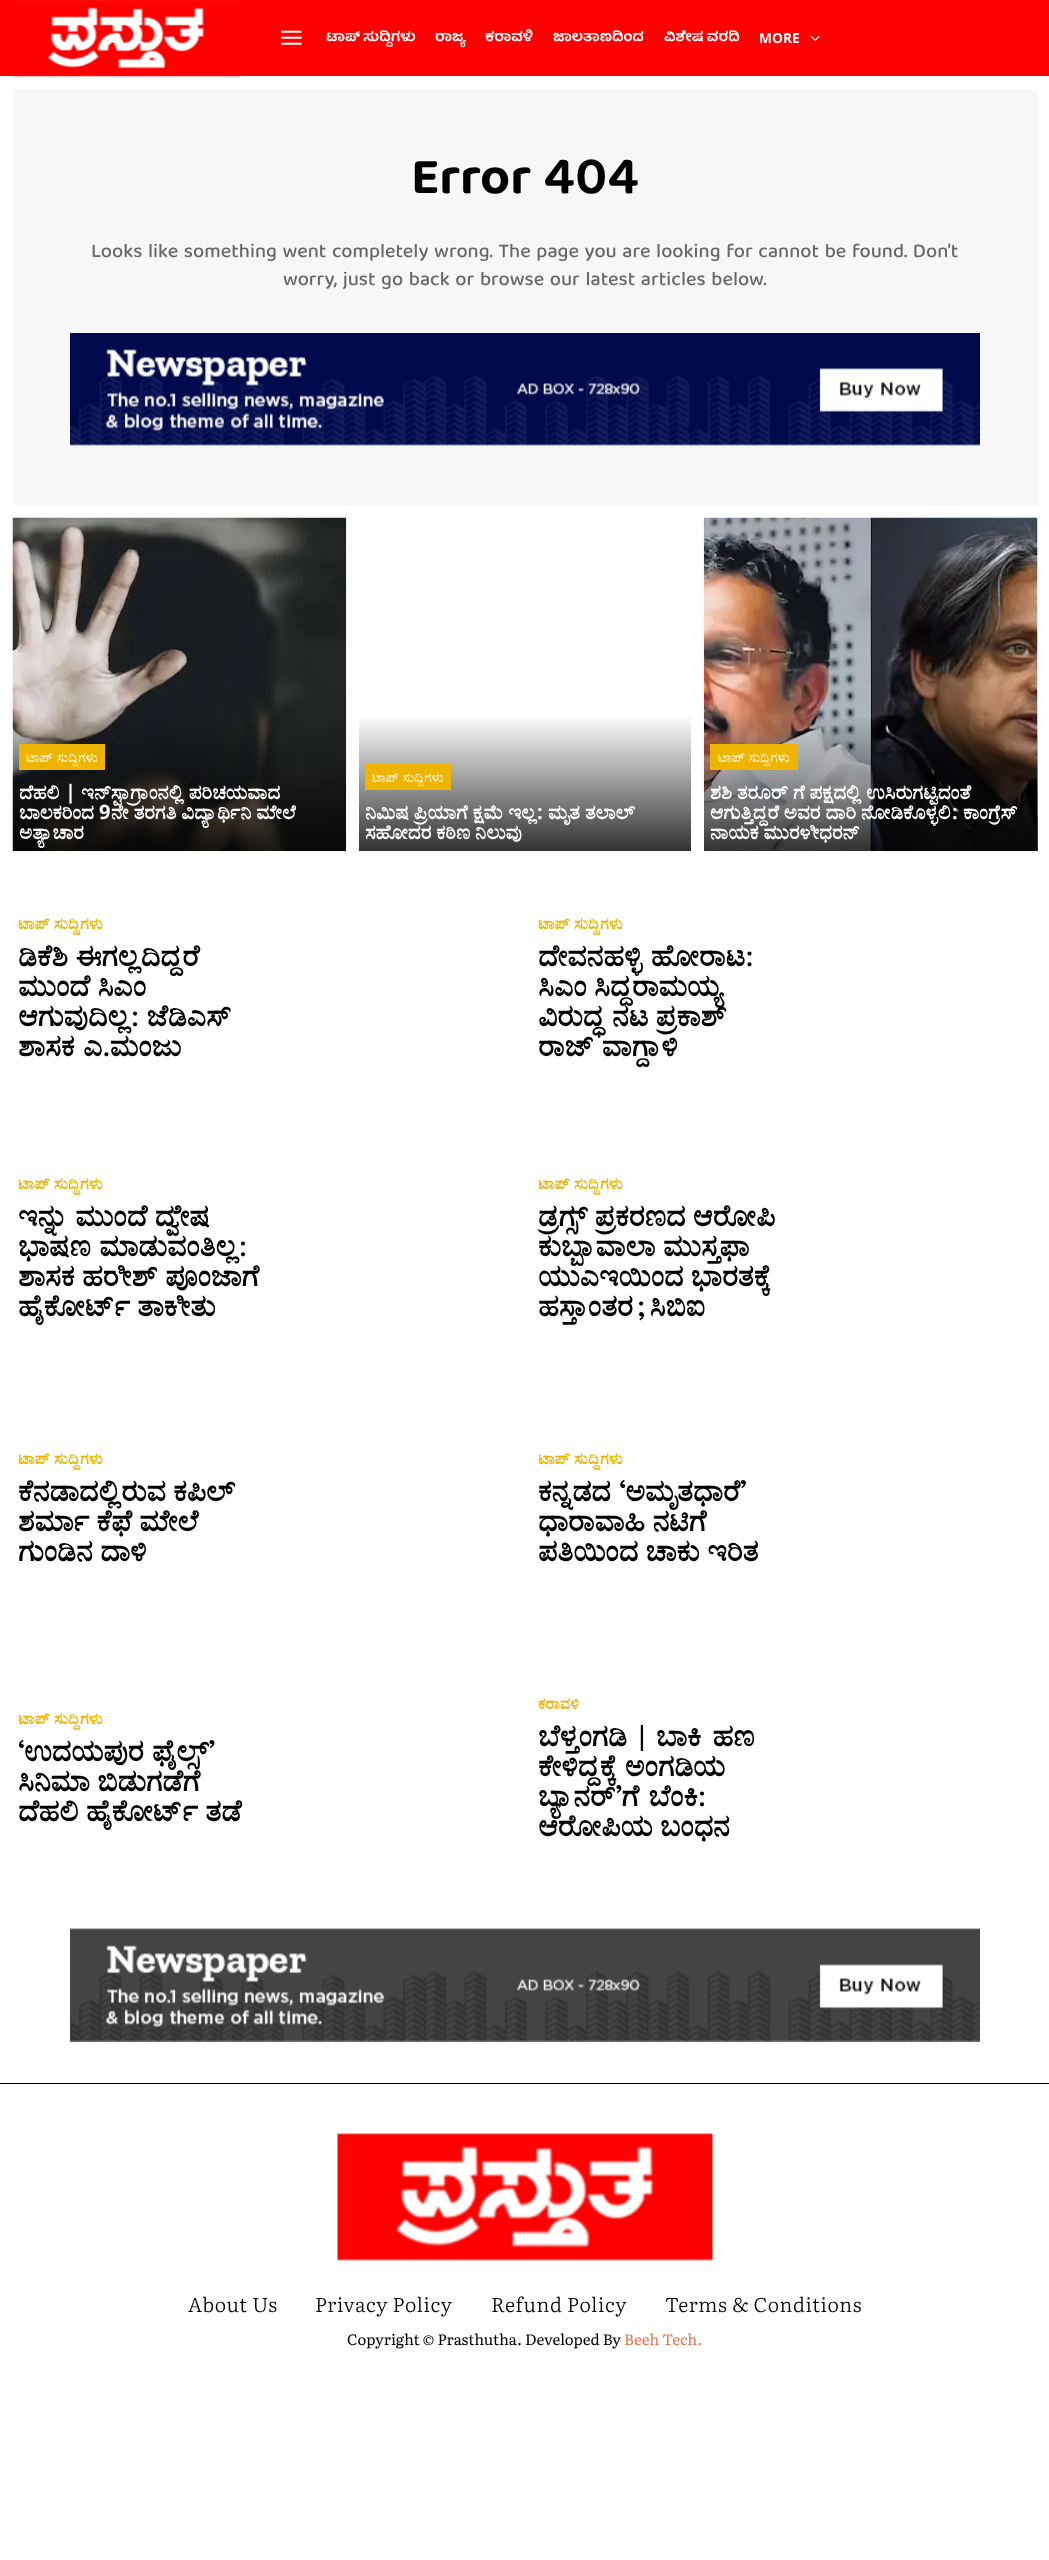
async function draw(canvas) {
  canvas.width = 1049;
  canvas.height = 2560;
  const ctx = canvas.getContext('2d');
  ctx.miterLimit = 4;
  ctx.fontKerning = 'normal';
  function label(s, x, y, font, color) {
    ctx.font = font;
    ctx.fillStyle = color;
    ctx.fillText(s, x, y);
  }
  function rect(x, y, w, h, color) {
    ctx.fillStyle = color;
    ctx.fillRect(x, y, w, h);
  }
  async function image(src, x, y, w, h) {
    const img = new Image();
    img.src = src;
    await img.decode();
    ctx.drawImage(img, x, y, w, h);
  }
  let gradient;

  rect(0, 0, 1049, 2560, '#fff');
  rect(0, 0, 1049, 76, '#fe0000');
  await image('assets/img1.png', 12, 0, 229, 77);
  await image('assets/img2.png', 281, 30, 21, 15);
  label('ಟಾಪ್ ಸುದ್ದಿಗಳು', 326, 41, 'bold 13.75px "Baloo Tamma 2"', '#fff');
  label('ರಾಜ್ಯ', 435, 41, 'bold 13.75px "Baloo Tamma 2"', '#fff');
  label('ಕರಾವಳಿ', 485, 41, 'bold 13.75px "Baloo Tamma 2"', '#fff');
  label('ಜಾಲತಾಣದಿಂದ', 553, 41, 'bold 13.75px "Baloo Tamma 2"', '#fff');
  label('ವಿಶೇಷ ವರದಿ', 664, 41, 'bold 13.75px "Baloo Tamma 2"', '#fff');
  label('MORE', 759, 43, 'bold 13.75px Open Sans', '#fff');
  await image('assets/img3.png', 810, 35, 10, 6);
  rect(13, 89, 1025, 416, '#f7f7f7');
  label('Error 404', 411, 193, 'bold 52.5px "Baloo Tamma 2"', '#000');
  label('Looks like something went completely wrong. The page you are looking for cannot be found. Don\'t', 91, 257, '500 20px "Baloo Tamma 2"', '#666');
  label('worry, just go back or browse our latest articles below.', 283, 285, '500 20px "Baloo Tamma 2"', '#666');
  await image('assets/img4.png', 70, 333, 910, 113);
  await image('assets/img5.png', 12, 517, 335, 335);
  rect(19, 744, 86, 26, '#edb500');
  label('ಟಾಪ್ ಸುದ್ದಿಗಳು', 26, 762, '13.75px FreeSerif', '#fff');
  label('ದೆಹಲಿ', 19, 799, 'bold 20px FreeSerif', '#fff');
  label('|', 65, 799, 'bold 20px Open Sans', '#fff');
  label('ಇನ್‌ಸ್ಟಾಗ್ರಾಂನಲ್ಲಿ ಪರಿಚಯವಾದ', 81, 799, 'bold 20px FreeSerif', '#fff');
  label('ಬಾಲಕರಿಂದ', 19, 819, 'bold 20px FreeSerif', '#fff');
  label('9', 99, 819, 'bold 20px Open Sans', '#fff');
  label('ನೇ ತರಗತಿ ವಿದ್ಯಾರ್ಥಿನಿ ಮೇಲೆ', 111, 819, 'bold 20px FreeSerif', '#fff');
  label('ಅತ್ಯಾಚಾರ', 19, 839, 'bold 20px FreeSerif', '#fff');
  gradient = ctx.createLinearGradient(525, 851, 525, 518);
  gradient.addColorStop(0, '#333');
  gradient.addColorStop(0.41, '#fff');
  gradient.addColorStop(1, '#fff');
  ctx.fillStyle = gradient;
  ctx.fillRect(359, 716, 332, 135);
  rect(365, 764, 86, 26, '#edb500');
  label('ಟಾಪ್ ಸುದ್ದಿಗಳು', 372, 782, '13.75px FreeSerif', '#fff');
  label('ನಿಮಿಷ ಪ್ರಿಯಾಗೆ ಕ್ಷಮೆ ಇಲ್ಲ', 365, 819, 'bold 20px FreeSerif', '#fff');
  label(':', 537, 819, 'bold 20px Open Sans', '#fff');
  label('ಮೃತ ತಲಾಲ್', 548, 819, 'bold 20px FreeSerif', '#fff');
  label('ಸಹೋದರ ಕಠಿಣ ನಿಲುವು', 365, 839, 'bold 20px FreeSerif', '#fff');
  await image('assets/img6.png', 703, 517, 335, 335);
  gradient = ctx.createLinearGradient(871, 851, 871, 518);
  gradient.addColorStop(0, '#000000cc');
  gradient.addColorStop(0.41, '#00000000');
  gradient.addColorStop(1, '#00000000');
  ctx.fillStyle = gradient;
  ctx.fillRect(704, 718, 334, 133);
  rect(710, 744, 88, 26, '#edb500');
  label('ಟಾಪ್ ಸುದ್ದಿಗಳು', 718, 762, '13.75px FreeSerif', '#fff');
  label('ಶಶಿ ತರೂರ್ ಗೆ ಪಕ್ಷದಲ್ಲಿ ಉಸಿರುಗಟ್ಟಿದಂತೆ', 710, 799, 'bold 20px FreeSerif', '#fff');
  label('ಆಗುತ್ತಿದ್ದರೆ ಅವರ ದಾರಿ ನೋಡಿಕೊಳ್ಳಲಿ', 710, 819, 'bold 20px FreeSerif', '#fff');
  label(':', 952, 819, 'bold 20px Open Sans', '#fff');
  label('ಕಾಂಗ್ರೆಸ್', 963, 819, 'bold 20px FreeSerif', '#fff');
  label('ನಾಯಕ ಮುರಳೀಧರನ್', 710, 839, 'bold 20px FreeSerif', '#fff');
  label('ಟಾಪ್ ಸುದ್ದಿಗಳು', 18, 929, 'bold 16.25px FreeSerif', '#edb500');
  label('ಡಿಕೆಶಿ ಈಗಲ್ಲದಿದ್ದರೆ', 18, 966, 'bold 30px FreeSerif', '#000');
  label('ಮುಂದೆ ಸಿಎಂ', 18, 996, 'bold 30px FreeSerif', '#000');
  ctx.wordSpacing = '1px';
  label('ಆಗುವುದಿಲ್ಲ: ಜೆಡಿಎಸ್', 18, 1026, 'bold 30px FreeSerif', '#000');
  label('ಶಾಸಕ ಎ.ಮಂಜು', 18, 1056, 'bold 30px FreeSerif', '#000');
  ctx.wordSpacing = '0px';
  label('ಟಾಪ್ ಸುದ್ದಿಗಳು', 538, 929, 'bold 16.25px FreeSerif', '#edb500');
  ctx.wordSpacing = '1px';
  label('ದೇವನಹಳ್ಳಿ ಹೋರಾಟ:', 538, 966, 'bold 30px FreeSerif', '#000');
  ctx.wordSpacing = '0px';
  label('ಸಿಎಂ ಸಿದ್ದರಾಮಯ್ಯ', 538, 996, 'bold 30px FreeSerif', '#000');
  label('ವಿರುದ್ಧ ನಟ ಪ್ರಕಾಶ್', 538, 1026, 'bold 30px FreeSerif', '#000');
  label('ರಾಜ್ ವಾಗ್ದಾಳಿ', 538, 1056, 'bold 30px FreeSerif', '#000');
  label('ಟಾಪ್ ಸುದ್ದಿಗಳು', 18, 1189, 'bold 16.25px FreeSerif', '#edb500');
  label('ಇನ್ನು ಮುಂದೆ ದ್ವೇಷ', 18, 1226, 'bold 30px FreeSerif', '#000');
  ctx.wordSpacing = '1px';
  label('ಭಾಷಣ ಮಾಡುವಂತಿಲ್ಲ:', 18, 1256, 'bold 30px FreeSerif', '#000');
  ctx.wordSpacing = '0px';
  label('ಶಾಸಕ ಹರೀಶ್ ಪೂಂಜಾಗೆ', 18, 1286, 'bold 30px FreeSerif', '#000');
  label('ಹೈಕೋರ್ಟ್ ತಾಕೀತು', 18, 1316, 'bold 30px FreeSerif', '#000');
  label('ಟಾಪ್ ಸುದ್ದಿಗಳು', 538, 1189, 'bold 16.25px FreeSerif', '#edb500');
  label('ಡ್ರಗ್ಸ್ ಪ್ರಕರಣದ ಆರೋಪಿ', 538, 1226, 'bold 30px FreeSerif', '#000');
  label('ಕುಬ್ಬಾವಾಲಾ ಮುಸ್ತಫಾ', 538, 1256, 'bold 30px FreeSerif', '#000');
  label('ಯುಎಇಯಿಂದ ಭಾರತಕ್ಕೆ', 538, 1286, 'bold 30px FreeSerif', '#000');
  ctx.wordSpacing = '-2px';
  label('ಹಸ್ತಾಂತರ; ಸಿಬಿಐ', 538, 1316, 'bold 30px FreeSerif', '#000');
  ctx.wordSpacing = '0px';
  label('ಟಾಪ್ ಸುದ್ದಿಗಳು', 18, 1464, 'bold 16.25px FreeSerif', '#edb500');
  label('ಕೆನಡಾದಲ್ಲಿರುವ ಕಪಿಲ್', 18, 1501, 'bold 30px FreeSerif', '#000');
  label('ಶರ್ಮಾ ಕೆಫೆ ಮೇಲೆ', 18, 1531, 'bold 30px FreeSerif', '#000');
  label('ಗುಂಡಿನ ದಾಳಿ', 18, 1561, 'bold 30px FreeSerif', '#000');
  label('ಟಾಪ್ ಸುದ್ದಿಗಳು', 538, 1464, 'bold 16.25px FreeSerif', '#edb500');
  ctx.wordSpacing = '1px';
  label('ಕನ್ನಡದ ‘ಅಮೃತಧಾರೆ’', 538, 1501, 'bold 30px FreeSerif', '#000');
  ctx.wordSpacing = '0px';
  label('ಧಾರಾವಾಹಿ ನಟಿಗೆ', 538, 1531, 'bold 30px FreeSerif', '#000');
  label('ಪತಿಯಿಂದ ಚಾಕು ಇರಿತ', 538, 1561, 'bold 30px FreeSerif', '#000');
  label('ಟಾಪ್ ಸುದ್ದಿಗಳು', 18, 1724, 'bold 16.25px FreeSerif', '#edb500');
  ctx.wordSpacing = '1px';
  label('‘ಉದಯಪುರ ಫೈಲ್ಸ್‌’', 18, 1761, 'bold 30px FreeSerif', '#000');
  ctx.wordSpacing = '0px';
  label('ಸಿನಿಮಾ ಬಿಡುಗಡೆಗೆ', 18, 1791, 'bold 30px FreeSerif', '#000');
  label('ದೆಹಲಿ ಹೈಕೋರ್ಟ್ ತಡೆ', 18, 1821, 'bold 30px FreeSerif', '#000');
  label('ಕರಾವಳಿ', 538, 1709, 'bold 16.25px FreeSerif', '#edb500');
  ctx.wordSpacing = '4px';
  label('ಬೆಳ್ತಂಗಡಿ | ಬಾಕಿ ಹಣ', 538, 1746, 'bold 30px FreeSerif', '#000');
  ctx.wordSpacing = '0px';
  label('ಕೇಳಿದ್ದಕ್ಕೆ ಅಂಗಡಿಯ', 538, 1776, 'bold 30px FreeSerif', '#000');
  ctx.wordSpacing = '2px';
  label('ಬ್ಯಾನರ್’ಗೆ ಬೆಂಕಿ:', 538, 1806, 'bold 30px FreeSerif', '#000');
  ctx.wordSpacing = '0px';
  label('ಆರೋಪಿಯ ಬಂಧನ', 538, 1836, 'bold 30px FreeSerif', '#000');
  await image('assets/img7.png', 70, 1928, 910, 114);
  rect(0, 2083, 1049, 1, '#000');
  await image('assets/img8.png', 337, 2133, 376, 128);
  ctx.letterSpacing = '0.6px';
  label('About Us', 188, 2312, '300 20px Literata', '#000');
  label('Privacy Policy', 315, 2312, '300 20px Literata', '#000');
  label('Refund Policy', 491, 2312, '300 20px Literata', '#000');
  label('Terms & Conditions', 665, 2312, '300 20px Literata', '#000');
  ctx.letterSpacing = '0px';
  label('Copyright © Prasthutha. Developed By', 347, 2345, '15px Literata', '#000');
  label('Beeh Tech.', 624, 2345, '15px Literata', '#e5764e');
}

draw(document.querySelector('canvas'));
